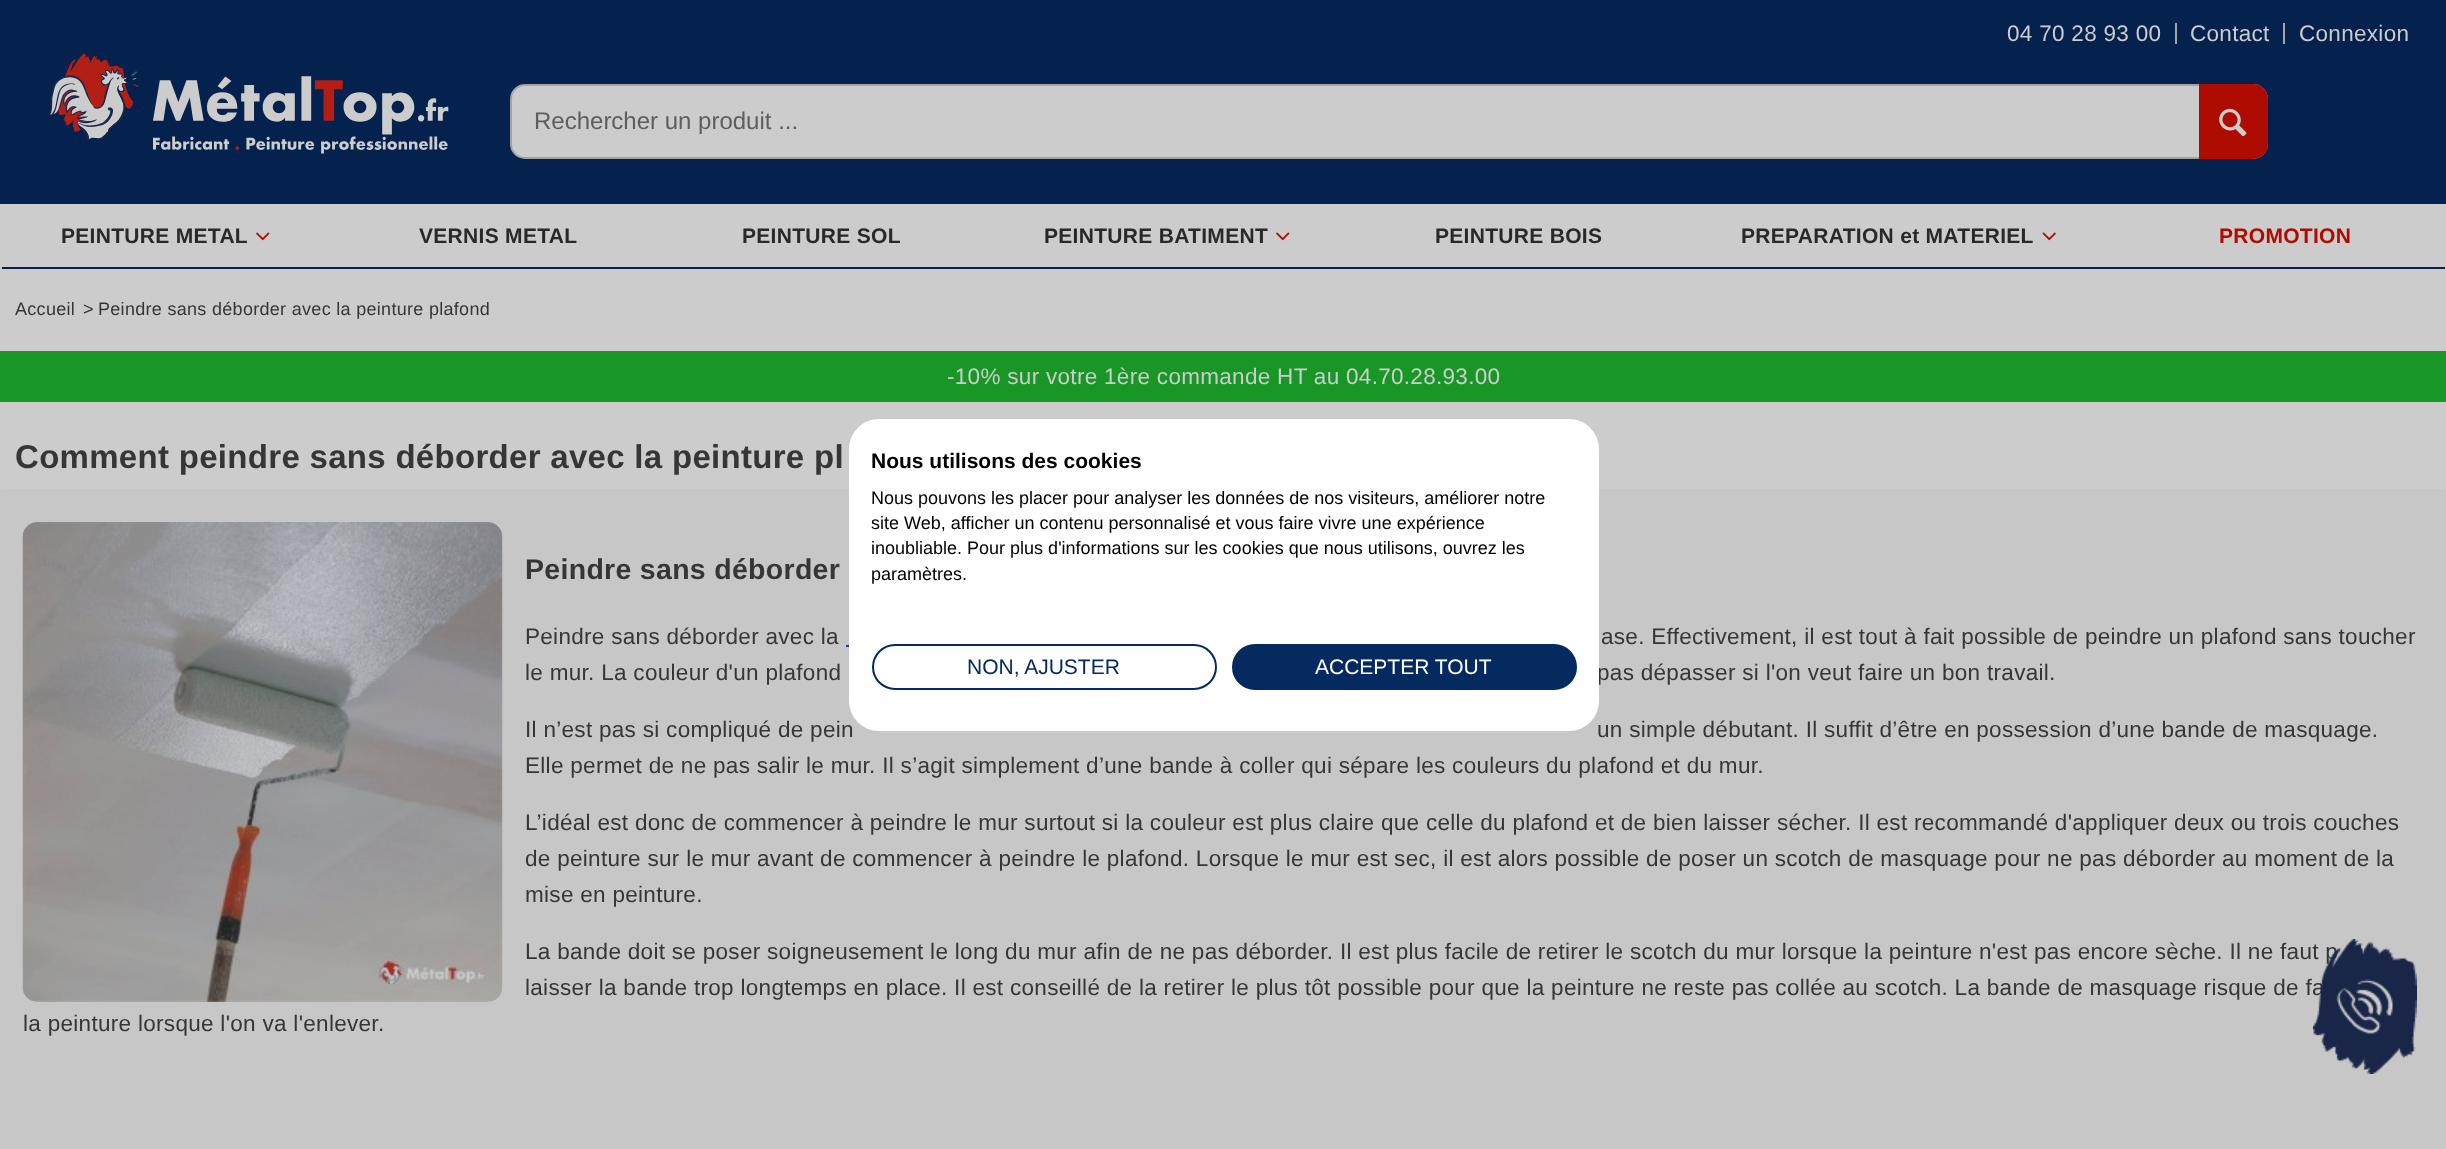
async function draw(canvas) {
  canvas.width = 2446;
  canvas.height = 1149;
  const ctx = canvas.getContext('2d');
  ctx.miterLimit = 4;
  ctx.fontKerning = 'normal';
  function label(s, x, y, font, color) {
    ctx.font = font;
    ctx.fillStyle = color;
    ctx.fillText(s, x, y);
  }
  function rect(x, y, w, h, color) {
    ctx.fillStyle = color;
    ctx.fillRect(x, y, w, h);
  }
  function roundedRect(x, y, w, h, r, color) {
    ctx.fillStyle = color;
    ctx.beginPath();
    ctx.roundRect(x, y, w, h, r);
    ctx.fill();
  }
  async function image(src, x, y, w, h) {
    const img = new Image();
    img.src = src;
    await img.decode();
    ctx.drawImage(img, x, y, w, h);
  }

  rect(0, 0, 2446, 1149, '#ccc');
  rect(0, 0, 2446, 204, '#04224d');
  ctx.letterSpacing = '0.3px';
  label('04 70 28 93 00', 2007, 41, '22.5px Liberation Sans', '#ccc');
  rect(2283, 23, 2, 21, '#a3a3a3');
  rect(2175, 23, 2, 21, '#a3a3a3');
  label('Contact', 2190, 41, '22.5px Liberation Sans', '#ccc');
  label('Connexion', 2299, 41, '22.5px Liberation Sans', '#ccc');
  await image('assets/img1.png', 49, 53, 400, 101);
  ctx.beginPath();
  ctx.roundRect(511, 85, 1756, 73, 14);
  ctx.fill();
  ctx.strokeStyle = '#a3a3a3';
  ctx.lineWidth = 2;
  ctx.stroke();
  ctx.letterSpacing = '0px';
  label('Rechercher un produit ...', 534, 129, '24px Liberation Sans', '#5e5e5e');
  ctx.fillStyle = '#ae0c00';
  ctx.beginPath();
  ctx.roundRect(2200, 85, 67, 73, [0, 14, 14, 0]);
  ctx.fill();
  ctx.strokeStyle = '#ae0c00';
  ctx.stroke();
  await image('assets/img2.png', 2219, 108, 28, 29);
  rect(2, 267, 2443, 2, '#04224d');
  ctx.letterSpacing = '0.3px';
  label('PEINTURE METAL', 61, 243, 'bold 21px Liberation Sans', '#292929');
  await image('assets/img3.png', 256, 232, 14, 9);
  label('VERNIS METAL', 419, 243, 'bold 21px Liberation Sans', '#292929');
  label('PEINTURE SOL', 742, 243, 'bold 21px Liberation Sans', '#292929');
  label('PEINTURE BATIMENT', 1044, 243, 'bold 21px Liberation Sans', '#292929');
  await image('assets/img3.png', 1276, 232, 14, 9);
  label('PEINTURE BOIS', 1435, 243, 'bold 21px Liberation Sans', '#292929');
  label('PREPARATION et MATERIEL', 1741, 243, 'bold 21px Liberation Sans', '#292929');
  await image('assets/img4.png', 2042, 232, 14, 9);
  label('PROMOTION', 2219, 243, 'bold 21px Liberation Sans', '#ae0c00');
  label('Accueil', 15, 315, '18px Liberation Sans', '#363636');
  label('>', 83, 315, '18px Liberation Sans', '#363636');
  label('Peindre sans déborder avec la peinture plafond', 98, 315, '18px Liberation Sans', '#363636');
  rect(0, 351, 2446, 51, '#189726');
  label('-10% sur votre 1ère commande HT au 04.70.28.93.00', 947, 384, '22.5px Liberation Sans', '#ccc');
  label('Comment peindre sans déborder avec la peinture pl', 15, 468, 'bold 33px Liberation Sans', '#363636');
  roundedRect(0, 489, 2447, 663, 3, '#c7c7c7');
  await image('assets/img5.png', 22, 522, 481, 480);
  label('Peindre sans déborder', 525, 579, 'bold 28.5px Liberation Sans', '#363636');
  label('Peindre sans déborder avec la', 525, 644, '22.5px Liberation Sans', '#363636');
  rect(846, 645, 3, 2, '#174192');
  label('ase. Effectivement, il est tout à fait possible de peindre un plafond sans toucher', 1601, 644, '22.5px Liberation Sans', '#363636');
  label('le mur. La couleur d\'un plafond', 525, 680, '22.5px Liberation Sans', '#363636');
  label('pas dépasser si l\'on veut faire un bon travail.', 1597, 680, '22.5px Liberation Sans', '#363636');
  label('Il n’est pas si compliqué de pein', 525, 737, '22.5px Liberation Sans', '#363636');
  label('un simple débutant. Il suffit d’être en possession d’une bande de masquage.', 1597, 737, '22.5px Liberation Sans', '#363636');
  label('Elle permet de ne pas salir le mur. Il s’agit simplement d’une bande à coller qui sépare les couleurs du plafond et du mur.', 525, 773, '22.5px Liberation Sans', '#363636');
  label('L’idéal est donc de commencer à peindre le mur surtout si la couleur est plus claire que celle du plafond et de bien laisser sécher. Il est recommandé d\'appliquer deux ou trois couches', 525, 830, '22.5px Liberation Sans', '#363636');
  label('de peinture sur le mur avant de commencer à peindre le plafond. Lorsque le mur est sec, il est alors possible de poser un scotch de masquage pour ne pas déborder au moment de la', 525, 866, '22.5px Liberation Sans', '#363636');
  label('mise en peinture.', 525, 902, '22.5px Liberation Sans', '#363636');
  label('La bande doit se poser soigneusement le long du mur afin de ne pas déborder. Il est plus facile de retirer le scotch du mur lorsque la peinture n\'est pas encore sèche. Il ne faut p', 525, 959, '22.5px Liberation Sans', '#363636');
  label('laisser la bande trop longtemps en place. Il est conseillé de la retirer le plus tôt possible pour que la peinture ne reste pas collée au scotch. La bande de masquage risque de fa', 525, 995, '22.5px Liberation Sans', '#363636');
  label('la peinture lorsque l\'on va l\'enlever.', 23, 1031, '22.5px Liberation Sans', '#363636');
  roundedRect(849, 419, 750, 312, 30, '#fff');
  ctx.letterSpacing = '0px';
  label('Nous utilisons des cookies', 871, 468, 'bold 21px Liberation Sans', '#000');
  label('Nous pouvons les placer pour analyser les données de nos visiteurs, améliorer notre', 871, 504, '18px Liberation Sans', '#000');
  label('site Web, afficher un contenu personnalisé et vous faire vivre une expérience', 871, 529, '18px Liberation Sans', '#000');
  label('inoubliable. Pour plus d\'informations sur les cookies que nous utilisons, ouvrez les', 871, 554, '18px Liberation Sans', '#000');
  label('paramètres.', 871, 580, '18px Liberation Sans', '#000');
  ctx.beginPath();
  ctx.roundRect(873, 645, 343, 44, 22);
  ctx.strokeStyle = '#052a60';
  ctx.stroke();
  label('NON, AJUSTER', 967, 674, '21px Liberation Sans', '#052a60');
  ctx.beginPath();
  ctx.roundRect(1233, 645, 343, 44, 22);
  ctx.fill();
  ctx.stroke();
  label('ACCEPTER TOUT', 1315, 674, '21px Liberation Sans', '#fff');
  await image('assets/img6.png', 2313, 939, 104, 135);
}

draw(document.querySelector('canvas'));
